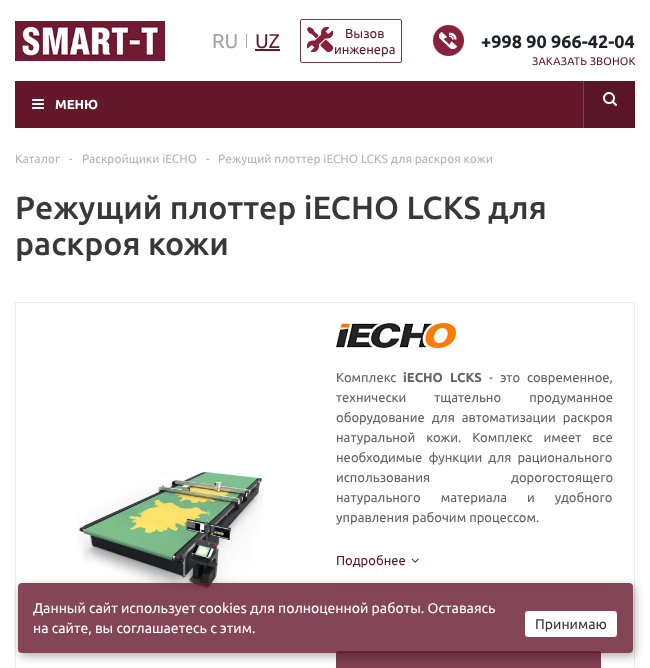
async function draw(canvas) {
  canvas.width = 650;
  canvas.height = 668;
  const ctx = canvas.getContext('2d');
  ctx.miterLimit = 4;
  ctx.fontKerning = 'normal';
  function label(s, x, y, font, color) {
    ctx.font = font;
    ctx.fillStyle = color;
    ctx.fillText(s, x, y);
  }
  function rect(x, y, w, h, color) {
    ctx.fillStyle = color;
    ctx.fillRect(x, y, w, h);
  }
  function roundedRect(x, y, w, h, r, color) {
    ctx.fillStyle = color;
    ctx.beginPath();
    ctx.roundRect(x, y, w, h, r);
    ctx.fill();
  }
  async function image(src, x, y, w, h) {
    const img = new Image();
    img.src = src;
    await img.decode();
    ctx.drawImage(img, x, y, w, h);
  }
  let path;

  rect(0, 0, 650, 668, '#fff');
  await image('assets/img1.png', 15, 21, 150, 40);
  label('RU', 212, 48, '20px Ubuntu', '#a3a3a3');
  rect(246, 34, 1, 14, '#a9a9a9');
  label('UZ', 255, 48, '20px Ubuntu', '#65172c');
  rect(255, 49, 25, 2, '#65172c');
  ctx.beginPath();
  ctx.roundRect(300.5, 19.5, 101, 43, 1.5);
  ctx.strokeStyle = '#6c3d49';
  ctx.stroke();
  await image('assets/img2.png', 307, 27, 26, 25);
  label('Вызов', 345, 38, '13px Ubuntu', '#5d1529');
  label('инженера', 334, 54, '13px Ubuntu', '#5d1529');
  await image('assets/img3.png', 433, 25, 31, 31);
  label('+998 90 966-42-04', 481, 48, 'bold 18px Ubuntu', '#1d2029');
  ctx.letterSpacing = '0.1px';
  label('ЗАКАЗАТЬ ЗВОНОК', 532, 65, '11px Ubuntu', '#5d1529');
  rect(15, 81, 568, 47, '#65172c');
  await image('assets/img4.png', 32, 99, 12, 10);
  ctx.letterSpacing = '0px';
  label('МЕНЮ', 55, 109, 'bold 13px Ubuntu', '#fff');
  rect(584, 81, 51, 47, '#591427');
  rect(583, 81, 1, 47, '#7a4352');
  await image('assets/img5.png', 603, 92, 14, 14);
  label('Каталог', 15, 163, '12px Ubuntu', '#b6b5b5');
  label('-', 69, 163, '12px Ubuntu', '#b6b5b5');
  label('Раскройщики iECHO', 82, 163, '12px Ubuntu', '#b6b5b5');
  label('-', 206, 163, '12px Ubuntu', '#b6b5b5');
  label('Режущий плоттер iECHO LCKS для раскроя кожи', 218, 163, '12px Ubuntu', '#b6b5b5');
  label('Режущий плоттер iECHO LCKS для', 15, 219, '500 32px Ubuntu', '#383838');
  label('раскроя кожи', 15, 255, '500 32px Ubuntu', '#383838');
  ctx.strokeStyle = '#eaebec';
  ctx.strokeRect(15.5, 302.5, 619, 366);
  await image('assets/img6.png', 77, 471, 186, 121);
  rect(336, 589, 277, 1, '#f2f2f2');
  await image('assets/img7.png', 336, 323, 120, 25);
  label('Комплекс', 336, 382, '13px Ubuntu', '#626262');
  ctx.wordSpacing = '4px';
  label('iECHO LCKS', 403, 382, 'bold 13px Ubuntu', '#626262');
  label('- это современное,', 489, 382, '13px Ubuntu', '#626262');
  ctx.wordSpacing = '25px';
  label('технически тщательно продуманное', 336, 402, '13px Ubuntu', '#626262');
  ctx.wordSpacing = '4px';
  label('оборудование для автоматизации раскроя', 336, 422, '13px Ubuntu', '#626262');
  ctx.wordSpacing = '8px';
  label('натуральной кожи. Комплекс имеет все', 336, 442, '13px Ubuntu', '#626262');
  ctx.wordSpacing = '3px';
  label('необходимые функции для рационального', 336, 462, '13px Ubuntu', '#626262');
  ctx.wordSpacing = '78px';
  label('использования дорогостоящего', 336, 482, '13px Ubuntu', '#626262');
  ctx.wordSpacing = '17px';
  label('натурального материала и удобного', 336, 502, '13px Ubuntu', '#626262');
  ctx.wordSpacing = '0px';
  label('управления рабочим процессом.', 336, 522, '13px Ubuntu', '#626262');
  label('Подробнее', 336, 565, '13px Ubuntu', '#5d1529');
  await image('assets/img8.png', 411, 558, 8, 5);
  ctx.fillStyle = '#803e52';
  ctx.beginPath();
  ctx.roundRect(336.5, 651.5, 264, 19, 1.5);
  ctx.fill();
  ctx.strokeStyle = '#803e52';
  ctx.stroke();
  ctx.save();
  path = new Path2D('M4 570H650V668H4ZM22 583H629C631 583 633 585 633 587V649C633 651 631 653 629 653H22C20 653 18 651 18 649V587C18 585 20 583 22 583Z');
  ctx.clip(path, 'evenodd');
  ctx.fillStyle = '#00000052';
  ctx.filter = 'blur(5px)';
  ctx.beginPath();
  ctx.roundRect(20, 586, 615, 70, 4);
  ctx.fill();
  ctx.filter = 'none';
  ctx.restore();
  roundedRect(18, 583, 615, 70, 4, '#65172ccc');
  label('Данный сайт использует cookies для полноценной работы. Оставаясь', 33, 613, '14px Ubuntu', '#fff');
  label('на сайте, вы соглашаетесь с этим.', 33, 633, '14px Ubuntu', '#fff');
  ctx.beginPath();
  ctx.roundRect(524.5, 610.5, 93, 27, 3.5);
  ctx.fill();
  ctx.strokeStyle = '#844556';
  ctx.stroke();
  label('Принимаю', 535, 629, '14px Ubuntu', '#383838');
}

draw(document.querySelector('canvas'));
